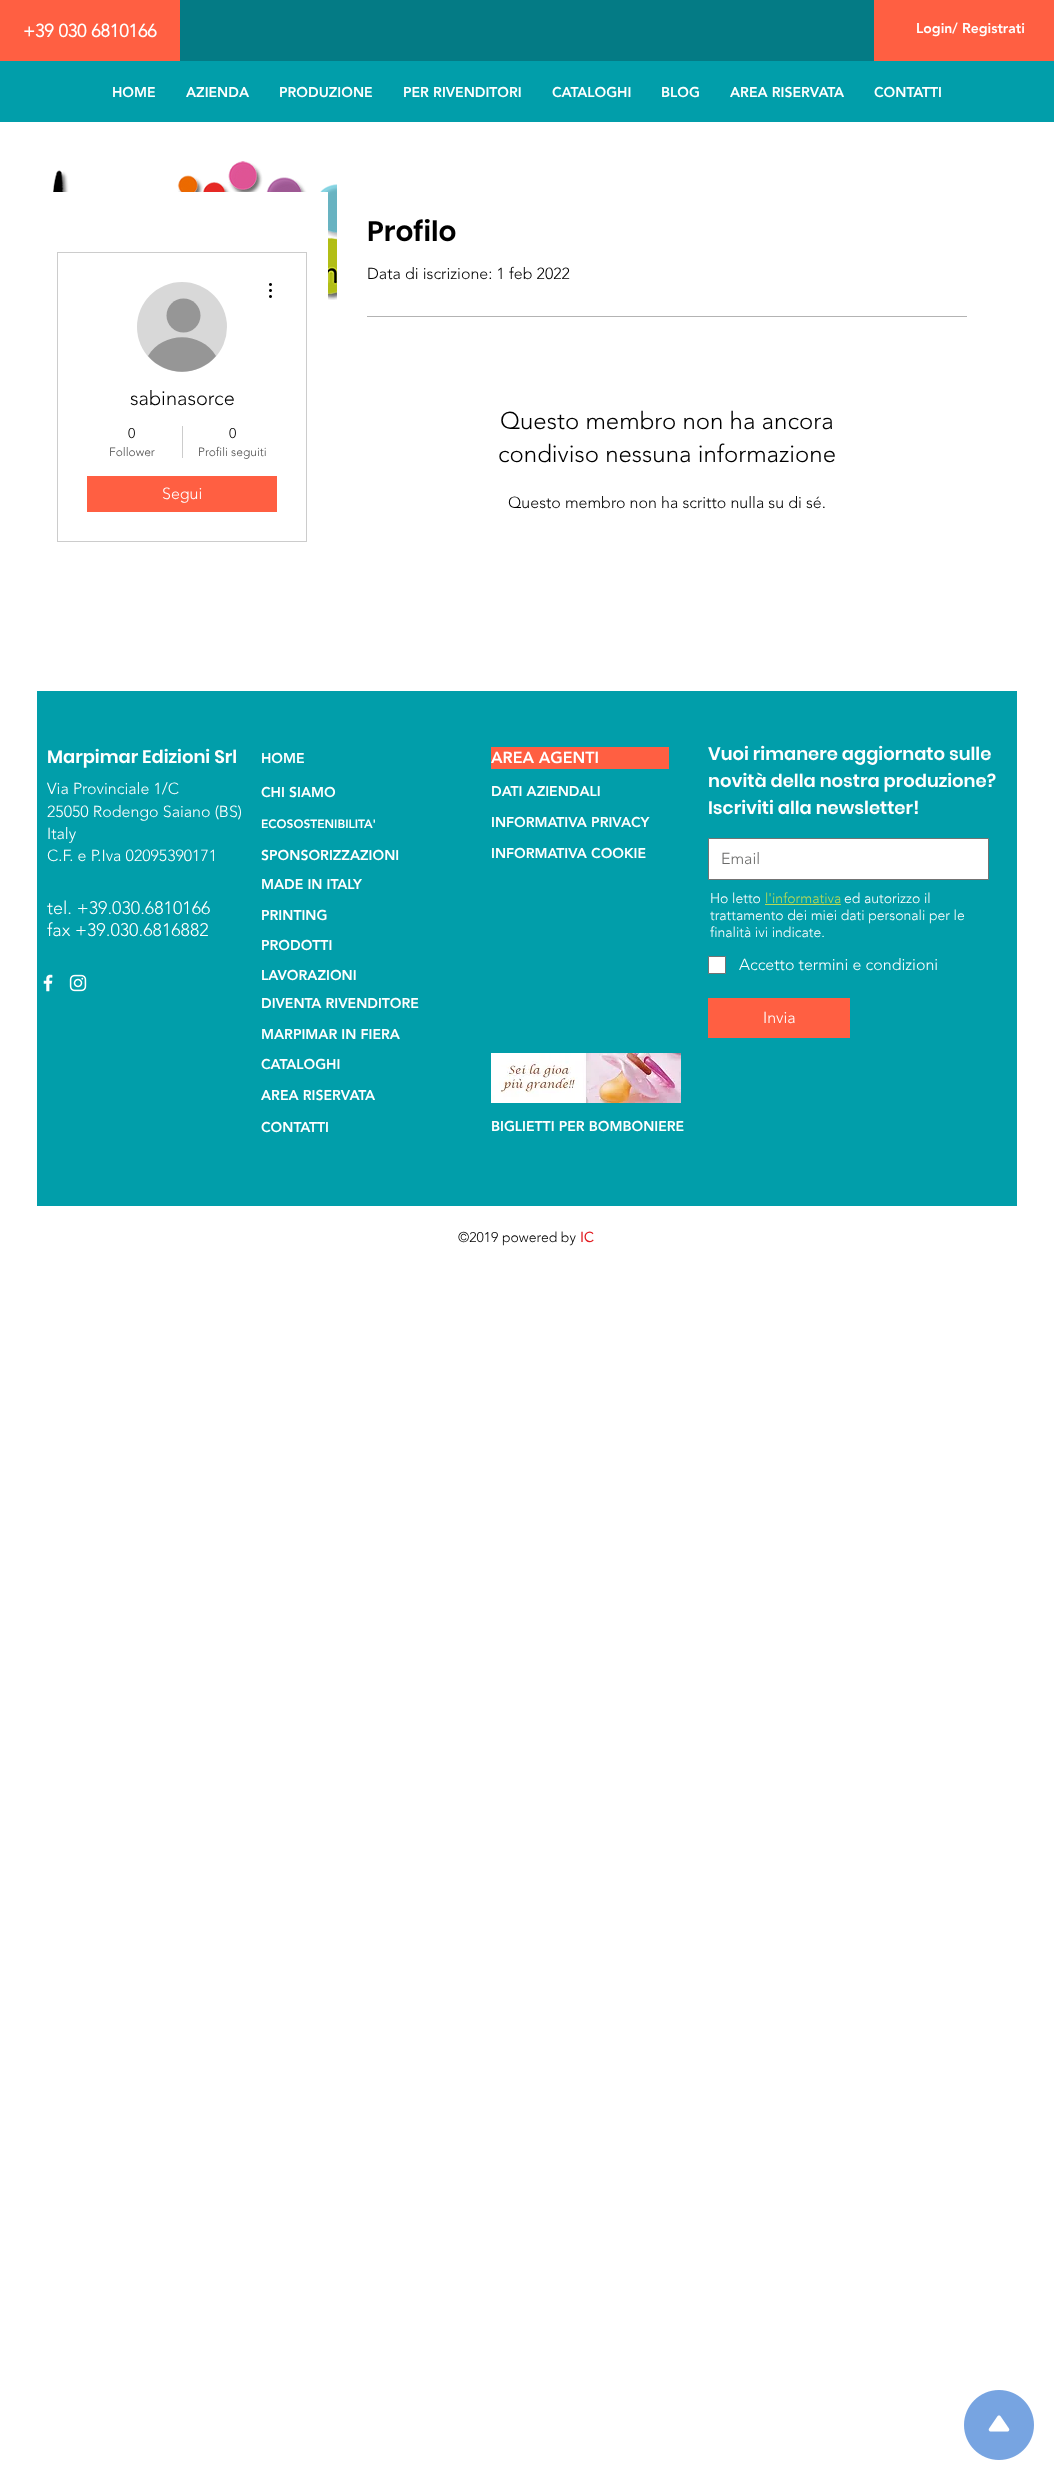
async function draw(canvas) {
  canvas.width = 1054;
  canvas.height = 2480;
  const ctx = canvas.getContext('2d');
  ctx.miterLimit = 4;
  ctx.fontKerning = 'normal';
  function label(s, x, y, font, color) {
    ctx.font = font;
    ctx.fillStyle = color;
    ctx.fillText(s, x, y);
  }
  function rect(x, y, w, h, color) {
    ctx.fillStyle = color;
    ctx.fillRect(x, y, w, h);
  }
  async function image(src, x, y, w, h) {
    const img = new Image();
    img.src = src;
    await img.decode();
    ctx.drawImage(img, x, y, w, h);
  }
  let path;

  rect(0, 0, 1054, 2480, '#fff');
  rect(0, 0, 180, 61, '#ff5f42');
  label('+39 030 6810166', 23, 37, 'bold 18px "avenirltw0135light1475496"', '#fff');
  rect(874, 0, 180, 61, '#ff5f42');
  label('Login/ Registrati', 916, 33, '900 14px "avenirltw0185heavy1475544"', '#fff');
  rect(180, 0, 694, 61, '#047b85');
  rect(0, 61, 1054, 61, '#019eaa');
  label('HOME', 112, 97, '900 14px "avenirltw0185heavy1475544"', '#fff');
  label('AZIENDA', 186, 97, '900 14px "avenirltw0185heavy1475544"', '#fff');
  label('PRODUZIONE', 279, 97, '900 14px "avenirltw0185heavy1475544"', '#fff');
  label('PER RIVENDITORI', 403, 97, '900 14px "avenirltw0185heavy1475544"', '#fff');
  label('CATALOGHI', 552, 97, '900 14px "avenirltw0185heavy1475544"', '#fff');
  label('BLOG', 661, 97, '900 14px "avenirltw0185heavy1475544"', '#fff');
  label('AREA RISERVATA', 730, 97, '900 14px "avenirltw0185heavy1475544"', '#fff');
  label('CONTATTI', 874, 97, '900 14px "avenirltw0185heavy1475544"', '#fff');
  await image('assets/img1.png', 53, 161, 284, 139);
  label('Profilo', 367, 241, '600 28px Poppins', '#000');
  label('Data di iscrizione: 1 feb 2022', 367, 279, '300 16px "avenirltw0135light1475496"', '#000');
  rect(367, 316, 600, 1, '#b3b3b3');
  label('Questo membro non ha ancora', 500, 429, '300 24px "avenirltw0135light1475496"', '#000');
  label('condiviso nessuna informazione', 498, 462, '300 24px "avenirltw0135light1475496"', '#000');
  label('Questo membro non ha scritto nulla su di sé.', 508, 508, '300 16px "avenirltw0135light1475496"', '#000');
  rect(53, 192, 275, 108, '#fff');
  ctx.strokeStyle = '#ccc';
  ctx.strokeRect(57.5, 252.5, 249, 289);
  ctx.fillStyle = '#d8d8d8';
  ctx.beginPath();
  ctx.arc(182, 327, 45, 0, 2 * Math.PI);
  ctx.fill();
  ctx.fillStyle = '#969696';
  ctx.beginPath();
  ctx.arc(183.5, 315.5, 17, 0, 2 * Math.PI);
  ctx.fill();
  path = new Path2D('M216 356C198 377 166 377 148 356C163 331 201 331 216 356Z');
  ctx.fill(path);
  await image('assets/img2.png', 269, 283, 3, 15);
  label('sabinasorce', 130, 405, '300 20px "avenirltw0135light1475496"', '#000');
  label('0', 128, 438, '300 14px "avenirltw0135light1475496"', '#000');
  label('Follower', 109, 456, '300 12px "avenirltw0135light1475496"', '#4d4d4d');
  rect(182, 426, 1, 32, '#ccc');
  label('0', 229, 438, '300 14px "avenirltw0135light1475496"', '#000');
  label('Profili seguiti', 198, 456, '300 12px "avenirltw0135light1475496"', '#4d4d4d');
  rect(87, 476, 190, 36, '#ff5f42');
  label('Segui', 162, 499, '300 16px "avenirltw0135light1475496"', '#fff');
  rect(37, 691, 980, 515, '#019eaa');
  label('Marpimar Edizioni Srl', 47, 763, '600 18px Poppins', '#fff');
  label('Via Provinciale 1/C', 47, 794, '300 16px "avenirltw0135light1475496"', '#fff');
  label('25050 Rodengo Saiano (BS)', 47, 817, '300 16px "avenirltw0135light1475496"', '#fff');
  label('Italy', 47, 839, '300 16px "avenirltw0135light1475496"', '#fff');
  label('C.F. e P.Iva 02095390171', 47, 861, '300 16px "avenirltw0135light1475496"', '#fff');
  label('tel. +39.030.6810166', 47, 914, '300 18px "avenirltw0135light1475496"', '#fff');
  label('fax +39.030.6816882', 47, 936, '300 18px "avenirltw0135light1475496"', '#fff');
  await image('assets/img3.png', 43, 974, 10, 18);
  await image('assets/img4.png', 69, 974, 18, 18);
  label('HOME', 261, 763, '900 14px "avenirltw0185heavy1475544"', '#fff');
  label('CHI SIAMO', 261, 797, '900 14px "avenirltw0185heavy1475544"', '#fff');
  label('ECOSOSTENIBILITA\'', 261, 828, '900 12px "avenirltw0185heavy1475544"', '#fff');
  label('SPONSORIZZAZIONI', 261, 860, '900 14px "avenirltw0185heavy1475544"', '#fff');
  label('MADE IN ITALY', 261, 889, '900 14px "avenirltw0185heavy1475544"', '#fff');
  label('PRINTING', 261, 920, '900 14px "avenirltw0185heavy1475544"', '#fff');
  label('PRODOTTI', 261, 950, '900 14px "avenirltw0185heavy1475544"', '#fff');
  label('LAVORAZIONI', 261, 980, '900 14px "avenirltw0185heavy1475544"', '#fff');
  label('DIVENTA RIVENDITORE', 261, 1008, '900 14px "avenirltw0185heavy1475544"', '#fff');
  label('MARPIMAR IN FIERA', 261, 1039, '900 14px "avenirltw0185heavy1475544"', '#fff');
  label('CATALOGHI', 261, 1069, '900 14px "avenirltw0185heavy1475544"', '#fff');
  label('AREA RISERVATA', 261, 1100, '900 14px "avenirltw0185heavy1475544"', '#fff');
  label('CONTATTI', 261, 1132, '900 14px "avenirltw0185heavy1475544"', '#fff');
  rect(491, 747, 178, 22, '#ff5f42');
  label('AREA AGENTI', 491, 763, '900 16px "avenirltw0185heavy1475544"', '#fff');
  label('DATI AZIENDALI', 491, 796, '900 14px "avenirltw0185heavy1475544"', '#fff');
  label('INFORMATIVA PRIVACY', 491, 827, '900 14px "avenirltw0185heavy1475544"', '#fff');
  label('INFORMATIVA COOKIE', 491, 858, '900 14px "avenirltw0185heavy1475544"', '#fff');
  await image('assets/img5.png', 491, 1053, 190, 50);
  label('BIGLIETTI PER BOMBONIERE', 491, 1131, '900 14px "avenirltw0185heavy1475544"', '#fff');
  label('Vuoi rimanere aggiornato sulle', 708, 760, '600 18px Poppins', '#fff');
  label('novità della nostra produzione?', 708, 787, '600 18px Poppins', '#fff');
  label('Iscriviti alla newsletter!', 708, 814, '600 18px Poppins', '#fff');
  ctx.beginPath();
  ctx.rect(708.5, 838.5, 280, 41);
  ctx.fill();
  ctx.strokeStyle = '#737373';
  ctx.stroke();
  label('Email', 721, 864, '300 16px "avenirltw0135light1475496"', '#6b6b6a');
  label('Ho letto', 710, 903, '300 14px "avenirltw0135light1475496"', '#fff');
  label('l\'informativa', 765, 903, '300 14px "avenirltw0135light1475496"', '#bada55');
  rect(765, 904, 76, 1, '#bada55');
  label('ed autorizzo il', 844, 903, '300 14px "avenirltw0135light1475496"', '#fff');
  label('trattamento dei miei dati personali per le', 710, 920, '300 14px "avenirltw0135light1475496"', '#fff');
  label('finalità ivi indicate.', 710, 937, '300 14px "avenirltw0135light1475496"', '#fff');
  ctx.beginPath();
  ctx.rect(708.5, 956.5, 17, 17);
  ctx.fill();
  ctx.stroke();
  label('Accetto termini e condizioni', 739, 970, '300 16px "avenirltw0135light1475496"', '#fff');
  rect(708, 998, 142, 40, '#ff5f42');
  label('Invia', 763, 1023, '300 16px "avenirltw0135light1475496"', '#fff');
  label('©2019 powered by', 458, 1242, '300 14px "avenirltw0135light1475496"', '#000');
  label('IC', 580, 1242, 'bold 14px "avenirltw0135light1475496"', '#e21c21');
  await image('assets/img6.png', 964, 2390, 70, 70);
}

draw(document.querySelector('canvas'));
